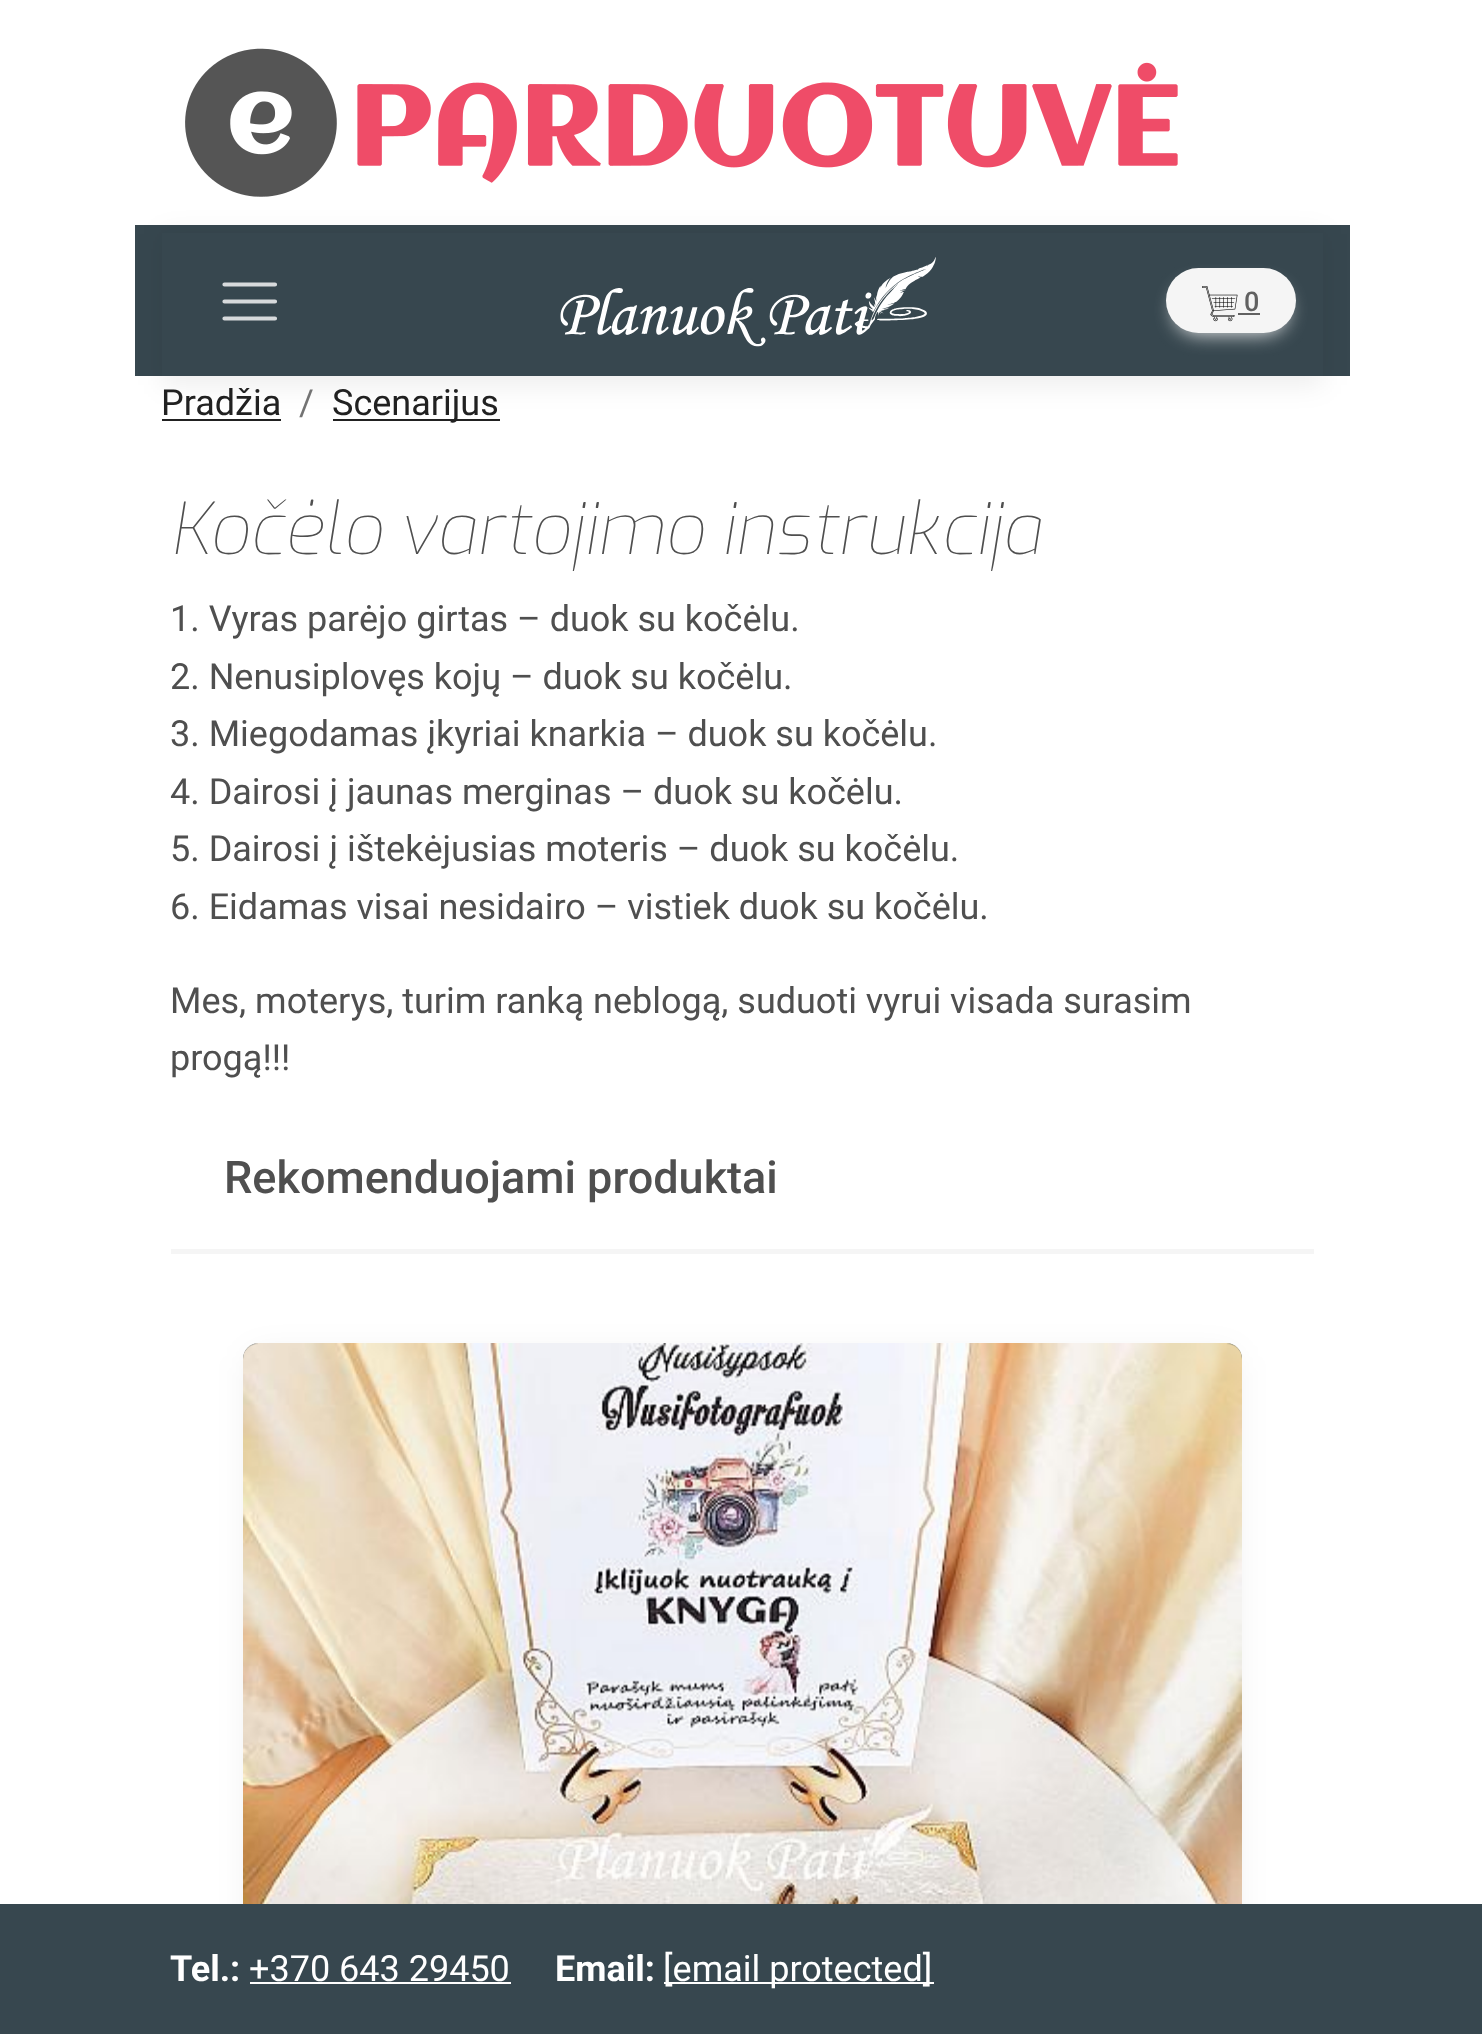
async function draw(canvas) {
  canvas.width = 1482;
  canvas.height = 2034;
  const ctx = canvas.getContext('2d');
  ctx.miterLimit = 4;
  ctx.fontKerning = 'normal';
  function label(s, x, y, font, color) {
    ctx.font = font;
    ctx.fillStyle = color;
    ctx.fillText(s, x, y);
  }
  function rect(x, y, w, h, color) {
    ctx.fillStyle = color;
    ctx.fillRect(x, y, w, h);
  }
  function roundedRect(x, y, w, h, r, color) {
    ctx.fillStyle = color;
    ctx.beginPath();
    ctx.roundRect(x, y, w, h, r);
    ctx.fill();
  }
  async function image(src, x, y, w, h) {
    const img = new Image();
    img.src = src;
    await img.decode();
    ctx.drawImage(img, x, y, w, h);
  }
  let path;

  rect(0, 0, 1482, 2034, '#fff');
  await image('assets/img1.png', 185, 48, 993, 149);
  rect(135, 225, 1215, 151, '#37474f');
  rect(162, 419, 119, 2, '#212121');
  rect(333, 419, 167, 2, '#212121');
  ctx.fillStyle = '#00000012';
  ctx.filter = 'blur(13.5px)';
  ctx.beginPath();
  ctx.rect(162, 234, 1161, 151);
  ctx.fill();
  ctx.filter = 'none';
  rect(162, 233, 1161, 143, '#37474f');
  path = new Path2D('M224.5 284.5H275M224.5 301.5H275M224.5 318.5H275');
  ctx.strokeStyle = '#d7dadc';
  ctx.lineWidth = 4.2;
  ctx.lineCap = 'round';
  ctx.stroke(path);
  await image('assets/img2.png', 560, 257, 376, 90);
  ctx.fillStyle = '#f6f6f6';
  ctx.filter = 'blur(10px)';
  ctx.beginPath();
  ctx.roundRect(1175, 286, 112, 47, 23.5);
  ctx.fill();
  ctx.filter = 'none';
  roundedRect(1166, 268, 130, 65, 32.5, '#f5f5f5');
  await image('assets/img3.png', 1202, 286, 36, 36);
  label('0', 1244, 311, '500 27px Roboto', '#616161');
  rect(1238, 313, 22, 2, '#616161');
  label('Pradžia', 161, 415, '36px Roboto', '#212121');
  label('/', 299, 415, '36px Roboto', '#737373');
  label('Scenarijus', 332, 415, '36px Roboto', '#212121');
  label('Kočėlo vartojimo instrukcija', 170, 554, 'italic 100 71.75px Exo', '#4f4f4f');
  label('1. Vyras parėjo girtas – duok su kočėlu.', 170, 631, '36px Roboto', '#4f4f4f');
  label('2. Nenusiplovęs kojų – duok su kočėlu.', 170, 689, '36px Roboto', '#4f4f4f');
  label('3. Miegodamas įkyriai knarkia – duok su kočėlu.', 170, 746, '36px Roboto', '#4f4f4f');
  label('4. Dairosi į jaunas merginas – duok su kočėlu.', 170, 804, '36px Roboto', '#4f4f4f');
  label('5. Dairosi į ištekėjusias moteris – duok su kočėlu.', 170, 861, '36px Roboto', '#4f4f4f');
  label('6. Eidamas visai nesidairo – vistiek duok su kočėlu.', 170, 919, '36px Roboto', '#4f4f4f');
  label('Mes, moterys, turim ranką neblogą, suduoti vyrui visada surasim', 170, 1013, '36px Roboto', '#4f4f4f');
  label('progą!!!', 170, 1070, '36px Roboto', '#4f4f4f');
  rect(171, 1249, 1143, 5, '#f5f5f5');
  label('Rekomenduojami produktai', 224, 1193, '500 45px Roboto', '#4f4f4f');
  ctx.fillStyle = '#00000012';
  ctx.filter = 'blur(17px)';
  ctx.beginPath();
  ctx.roundRect(250, 1355, 985, 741, 11);
  ctx.fill();
  ctx.filter = 'none';
  ctx.fillStyle = '#37474f';
  path = new Path2D('M259 1343H1226C1235 1343 1242 1350 1242 1359V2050H243V1359C243 1350 250 1343 259 1343Z');
  ctx.fill(path);
  await image('assets/img4.png', 243, 1343, 999, 561);
  rect(0, 1904, 1482, 130, '#37474f');
  label('Tel.:', 170, 1981, 'bold 36px Roboto', '#fff');
  label('+370 643 29450', 249, 1981, '36px Roboto', '#fff');
  rect(250, 1982, 261, 2, '#fff');
  label('Email:', 555, 1981, 'bold 36px Roboto', '#fff');
  rect(664, 1982, 270, 2, '#fff');
  label('[email protected]', 663, 1981, '36px Roboto', '#fff');
}

draw(document.querySelector('canvas'));
